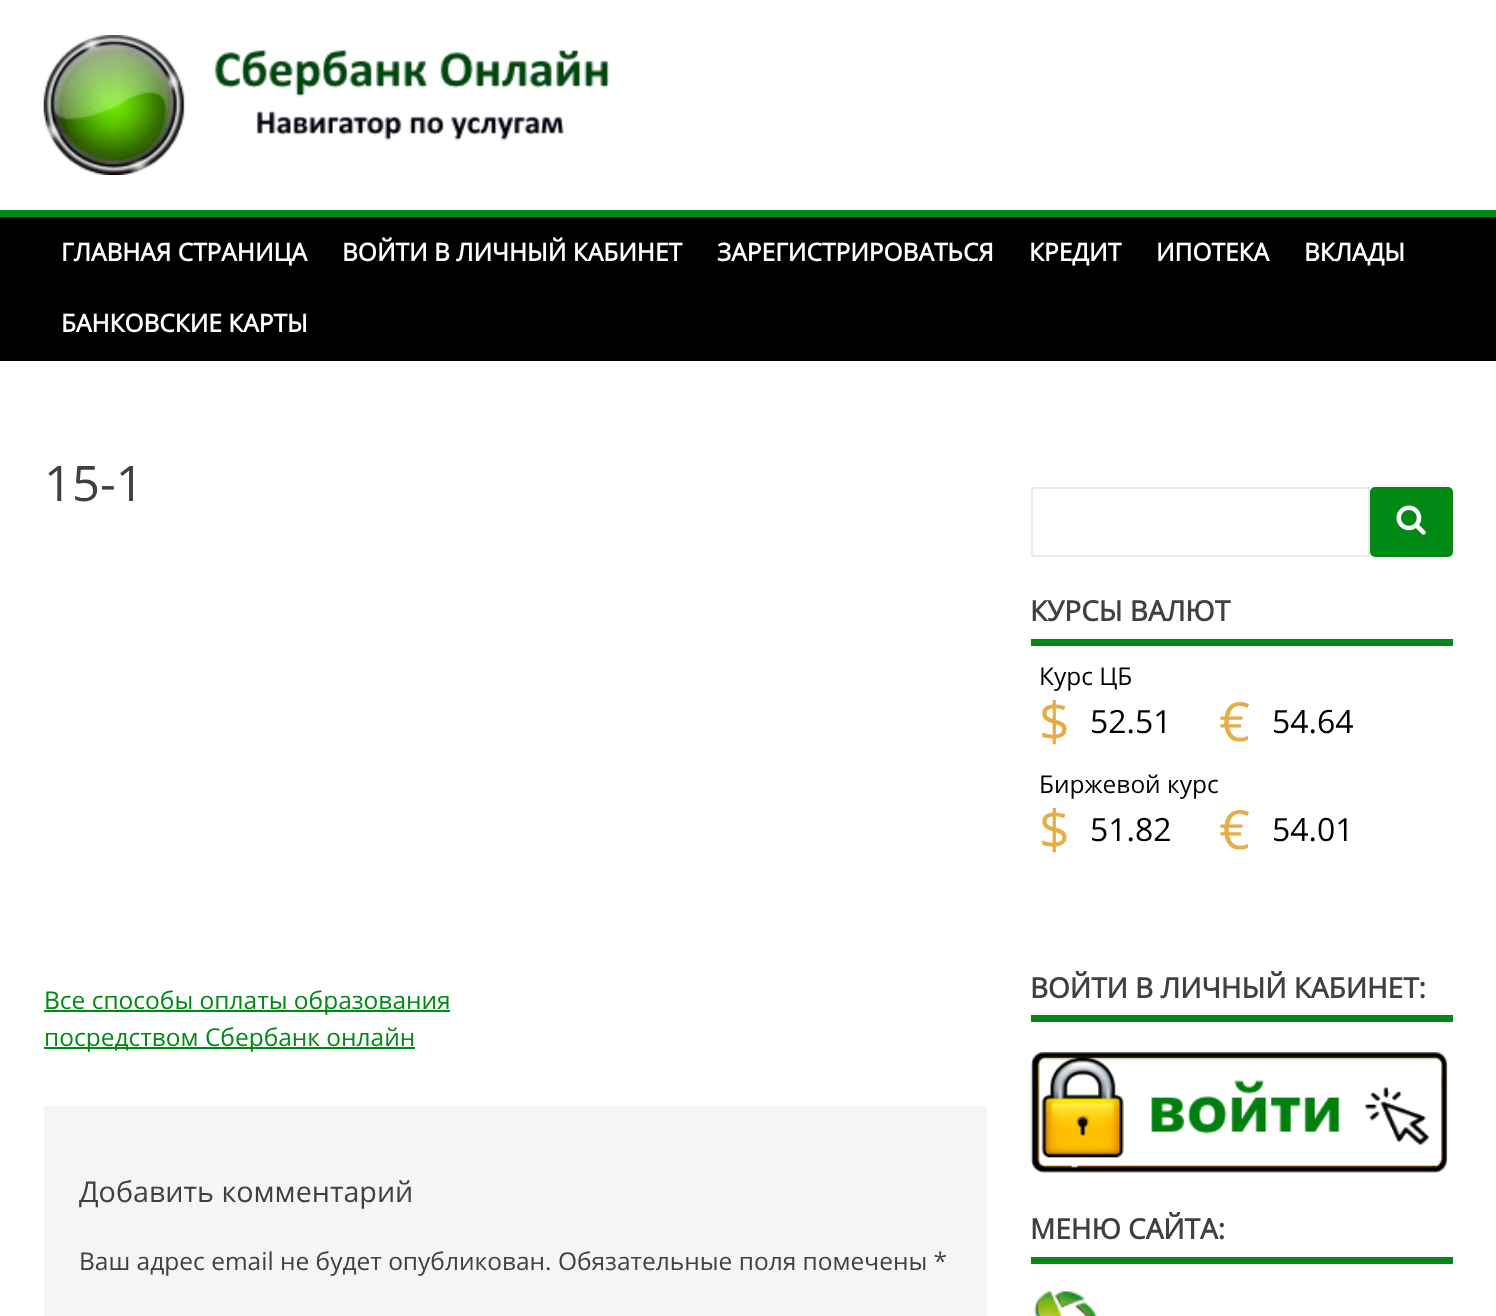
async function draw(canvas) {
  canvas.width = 1496;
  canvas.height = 1316;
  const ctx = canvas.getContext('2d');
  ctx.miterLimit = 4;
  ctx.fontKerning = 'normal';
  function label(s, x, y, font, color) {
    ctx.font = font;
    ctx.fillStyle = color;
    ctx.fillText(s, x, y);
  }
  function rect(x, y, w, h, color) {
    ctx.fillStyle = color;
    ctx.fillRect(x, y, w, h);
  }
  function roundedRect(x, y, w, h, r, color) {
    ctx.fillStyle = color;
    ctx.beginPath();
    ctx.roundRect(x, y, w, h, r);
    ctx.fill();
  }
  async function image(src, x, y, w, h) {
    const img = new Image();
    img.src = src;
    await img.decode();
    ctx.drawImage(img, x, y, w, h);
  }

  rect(0, 0, 1496, 1316, '#fff');
  await image('assets/img1.png', 43, 35, 567, 140);
  rect(0, 217, 1496, 144, '#000');
  rect(0, 210, 1496, 7, '#008914');
  label('ГЛАВНАЯ СТРАНИЦА', 61, 261, 'bold 24.5px Open Sans', '#fff');
  label('ВОЙТИ В ЛИЧНЫЙ КАБИНЕТ', 342, 261, 'bold 24.5px Open Sans', '#fff');
  label('ЗАРЕГИСТРИРОВАТЬСЯ', 717, 261, 'bold 24.5px Open Sans', '#fff');
  label('КРЕДИТ', 1029, 261, 'bold 24.5px Open Sans', '#fff');
  label('ИПОТЕКА', 1156, 261, 'bold 24.5px Open Sans', '#fff');
  label('ВКЛАДЫ', 1304, 261, 'bold 24.5px Open Sans', '#fff');
  label('БАНКОВСКИЕ КАРТЫ', 61, 332, 'bold 24.5px Open Sans', '#fff');
  label('15-1', 44, 501, '49px Open Sans', '#404040');
  rect(44, 1010, 406, 2, '#008914');
  label('Все способы оплаты образования', 44, 1009, '24.5px Open Sans', '#008914');
  rect(44, 1047, 371, 2, '#008914');
  label('посредством Сбербанк онлайн', 44, 1046, '24.5px Open Sans', '#008914');
  rect(44, 1106, 943, 210, '#f5f5f5');
  label('Добавить комментарий', 79, 1202, '28.7px Open Sans', '#404040');
  label('Ваш адрес email не будет опубликован. Обязательные поля помечены *', 79, 1270, '24.5px Open Sans', '#404040');
  ctx.strokeStyle = '#eaeaea';
  ctx.lineWidth = 2;
  ctx.strokeRect(1032, 488, 337, 68);
  roundedRect(1370, 487, 83, 70, 5, '#008914');
  await image('assets/img2.png', 1396, 505, 30, 30);
  rect(1031, 639, 422, 7, '#008914');
  label('КУРСЫ ВАЛЮТ', 1030, 621, 'bold 28px Open Sans', '#404040');
  label('Курс ЦБ', 1039, 685, '24.5px Open Sans', '#000');
  label('$', 1039, 741, '54px Open Sans', '#e8ac45');
  label('52.51', 1090, 733, '32px Open Sans', '#000');
  label('€', 1219, 741, '54px Open Sans', '#e8ac45');
  label('54.64', 1272, 733, '32px Open Sans', '#000');
  label('Биржевой курс', 1039, 793, '24.5px Open Sans', '#000');
  label('$', 1039, 849, '54px Open Sans', '#e8ac45');
  label('51.82', 1090, 841, '32px Open Sans', '#000');
  label('€', 1219, 849, '54px Open Sans', '#e8ac45');
  label('54.01', 1272, 841, '32px Open Sans', '#000');
  rect(1031, 1015, 422, 7, '#008914');
  label('ВОЙТИ В ЛИЧНЫЙ КАБИНЕТ:', 1030, 998, 'bold 28px Open Sans', '#404040');
  await image('assets/img3.png', 1030, 1051, 418, 122);
  rect(1031, 1257, 422, 7, '#008914');
  label('МЕНЮ САЙТА:', 1030, 1239, 'bold 28px Open Sans', '#404040');
  await image('assets/img4.png', 1034, 1290, 64, 26);
}

draw(document.querySelector('canvas'));
